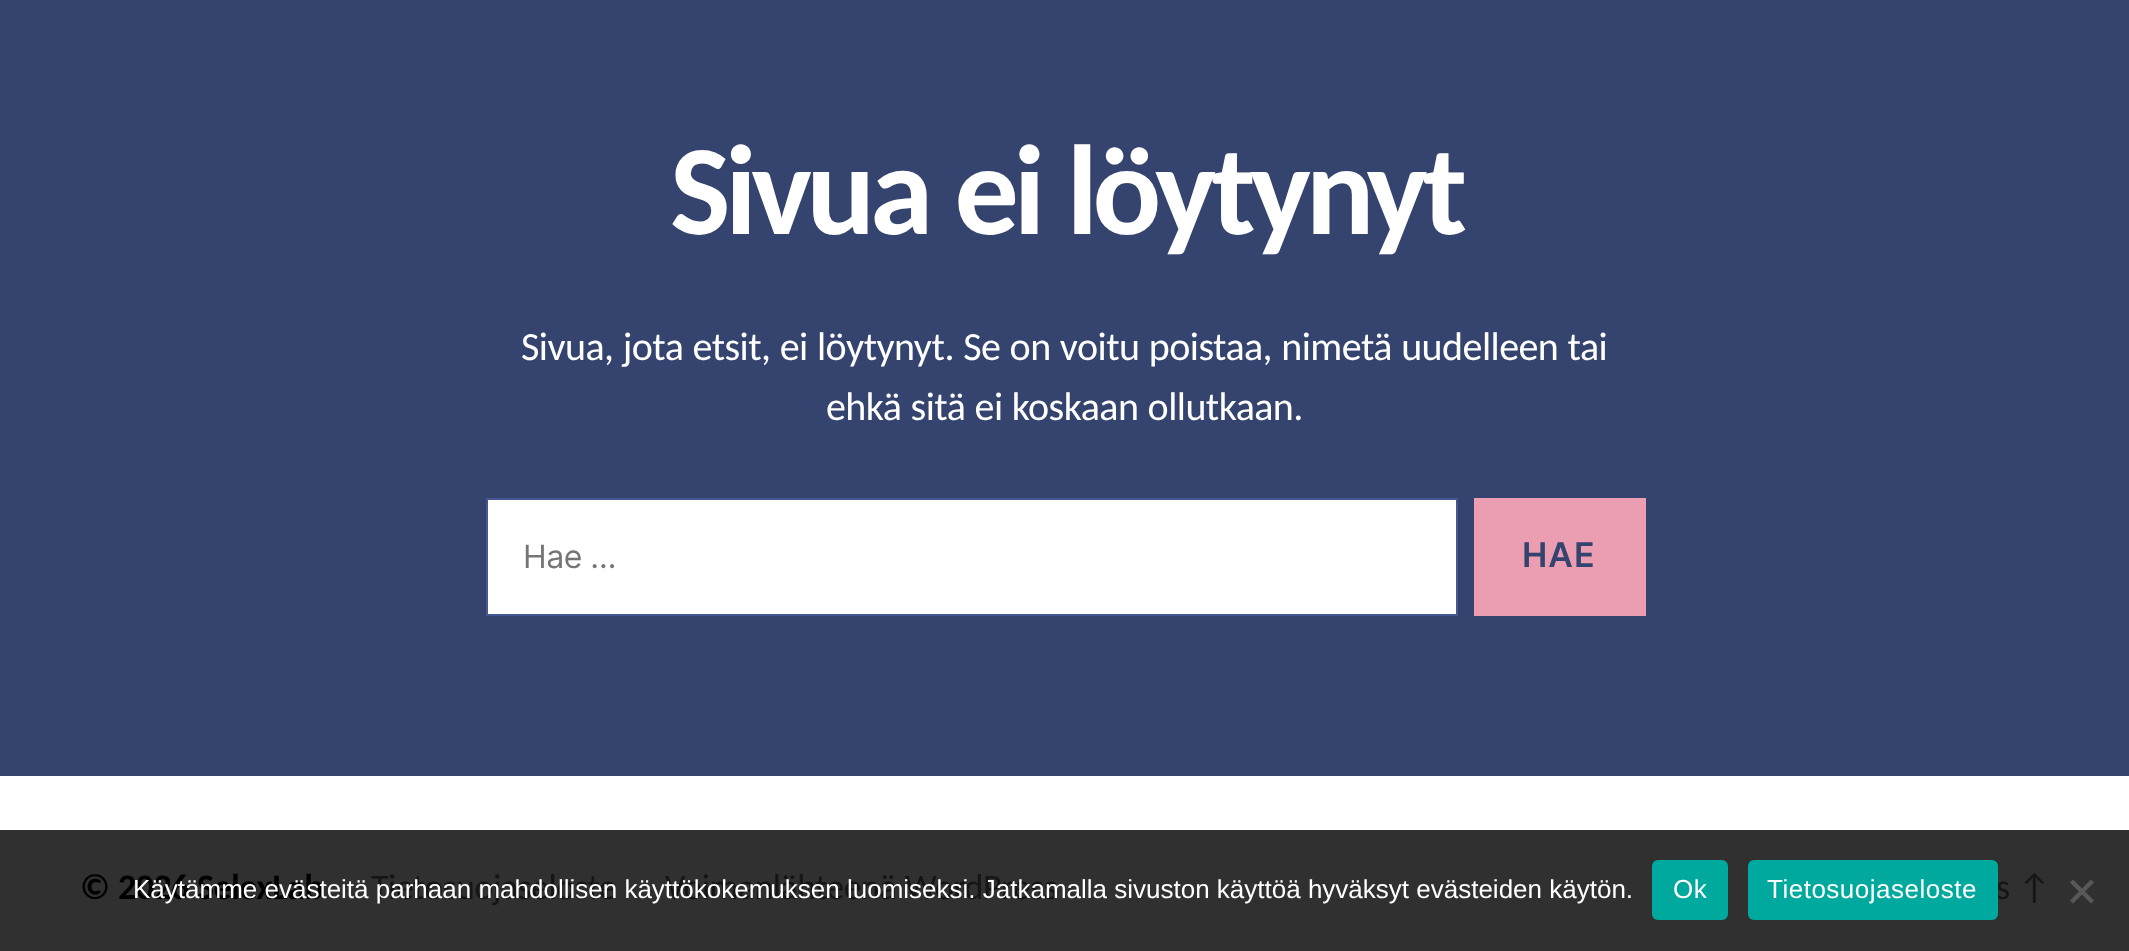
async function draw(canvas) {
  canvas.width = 2129;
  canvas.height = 951;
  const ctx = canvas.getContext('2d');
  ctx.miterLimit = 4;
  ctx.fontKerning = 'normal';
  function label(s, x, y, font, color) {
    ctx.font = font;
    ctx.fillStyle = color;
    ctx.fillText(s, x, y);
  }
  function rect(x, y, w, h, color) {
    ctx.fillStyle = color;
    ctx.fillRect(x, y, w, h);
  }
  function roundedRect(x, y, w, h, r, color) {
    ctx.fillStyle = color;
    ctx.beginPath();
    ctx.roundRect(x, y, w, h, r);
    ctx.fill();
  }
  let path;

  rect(0, 0, 2129, 951, '#35446f');
  ctx.letterSpacing = '-5.3px';
  ctx.wordSpacing = '3px';
  label('Sivua ei löytynyt', 670, 234, 'bold 128px Carlito', '#fff');
  ctx.letterSpacing = '-0.55px';
  ctx.wordSpacing = '0.75px';
  label('Sivua, jota etsit, ei löytynyt. Se on voitu poistaa, nimetä uudelleen tai', 521, 360, '40px Carlito', '#fff');
  label('ehkä sitä ei koskaan ollutkaan.', 826, 420, '40px Carlito', '#fff');
  ctx.beginPath();
  ctx.rect(487, 499, 970, 116);
  ctx.fill();
  ctx.strokeStyle = '#445791';
  ctx.lineWidth = 2;
  ctx.stroke();
  ctx.letterSpacing = '-0.5px';
  ctx.wordSpacing = '0px';
  label('Hae …', 523, 568, '32px Inter', '#757575');
  rect(1474, 498, 172, 118, '#eb9db2');
  ctx.letterSpacing = '1px';
  label('HAE', 1522, 567, '600 34px Inter', '#35446f');
  rect(0, 776, 2129, 54, '#fff');
  rect(0, 830, 2129, 121, '#303030');
  ctx.letterSpacing = '-0.55px';
  label('©', 80, 899, 'bold 36px Carlito', '#000');
  label('2026', 118, 899, 'bold 36px Carlito', '#000');
  label('SelexLab', 197, 899, 'bold 36px Carlito', '#000');
  label('Tietosuojaseloste', 371, 899, '36px Carlito', '#151515');
  ctx.wordSpacing = '1px';
  label('Voimanlähteenä WordPress', 665, 899, '36px Carlito', '#151515');
  ctx.wordSpacing = '0px';
  label('s', 1996, 899, '36px Carlito', '#151515');
  label('↑', 2018, 899, '36px Carlito', '#151515');
  ctx.letterSpacing = '0px';
  label('Käytämme evästeitä parhaan mahdollisen käyttökokemuksen luomiseksi. Jatkamalla sivuston käyttöä hyväksyt evästeiden käytön.', 133, 898, '26px Liberation Sans', '#fff');
  roundedRect(1652, 860, 76, 60, 6, '#00a99d');
  ctx.letterSpacing = '0.5px';
  label('Ok', 1673, 898, '26px Liberation Sans', '#fff');
  roundedRect(1748, 860, 250, 60, 6, '#00a99d');
  label('Tietosuojaseloste', 1767, 898, '26px Liberation Sans', '#fff');
  ctx.fillStyle = '#585858';
  path = new Path2D('M2091 879.5L2094 882.5L2073 903.5L2070 900.5Z');
  ctx.fill(path);
  path = new Path2D('M2070 882.5L2073 879.5L2094 900.5L2091 903.5Z');
  ctx.fill(path);
}

draw(document.querySelector('canvas'));
